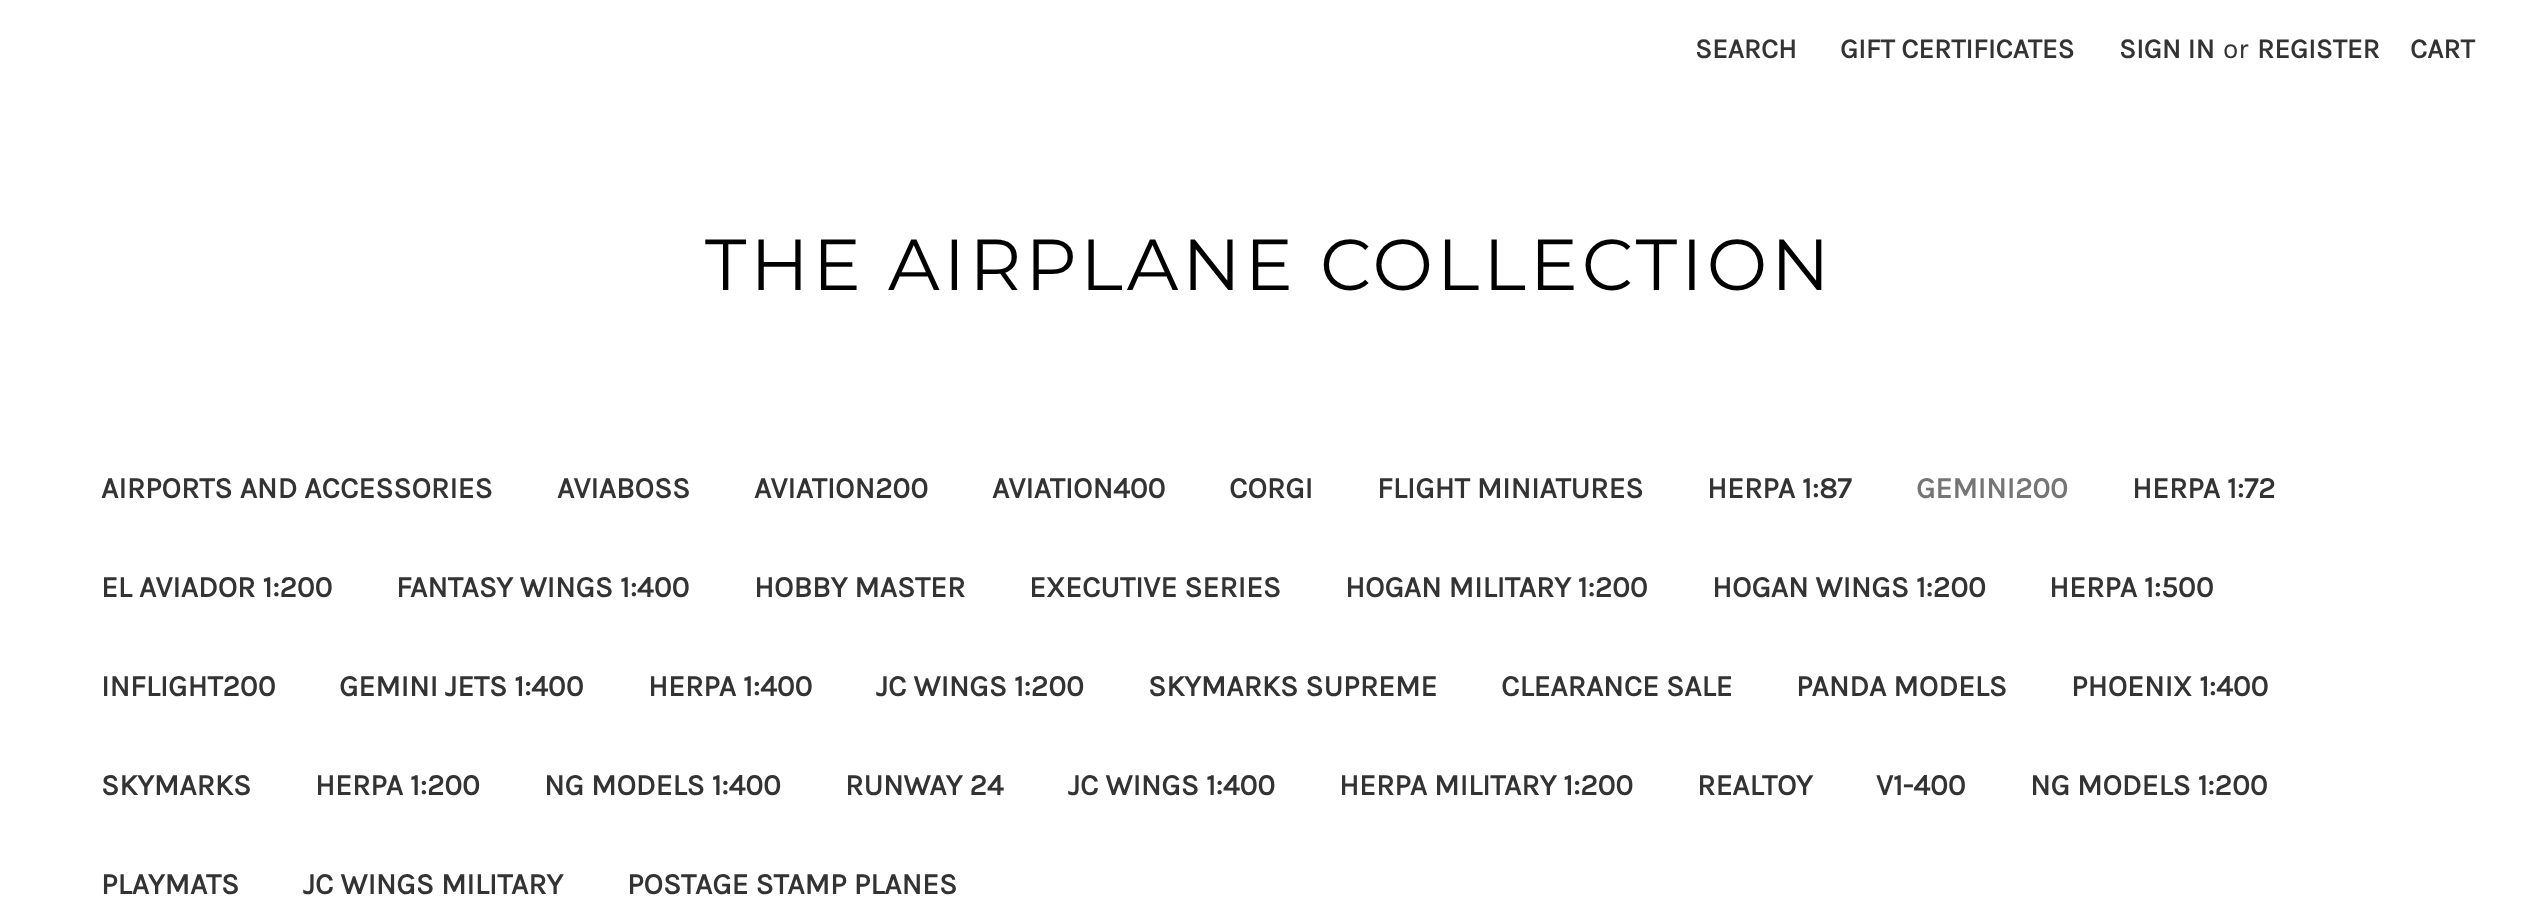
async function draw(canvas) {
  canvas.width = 2537;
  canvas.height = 923;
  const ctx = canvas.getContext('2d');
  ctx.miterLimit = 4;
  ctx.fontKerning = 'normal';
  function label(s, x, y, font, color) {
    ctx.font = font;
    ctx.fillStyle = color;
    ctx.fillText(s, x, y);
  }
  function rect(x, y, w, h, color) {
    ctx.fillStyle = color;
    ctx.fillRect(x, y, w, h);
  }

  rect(0, 0, 2537, 923, '#fff');
  label('SEARCH', 1695, 58, 'bold 28px Karla', '#333');
  label('GIFT CERTIFICATES', 1840, 58, 'bold 28px Karla', '#333');
  label('SIGN IN', 2119, 58, 'bold 28px Karla', '#333');
  label('or', 2223, 58, '28px Karla', '#333');
  label('REGISTER', 2257, 58, 'bold 28px Karla', '#333');
  label('CART', 2410, 58, 'bold 28px Karla', '#333');
  ctx.letterSpacing = '4px';
  label('THE AIRPLANE COLLECTION', 705, 290, '72px Montserrat', '#000');
  ctx.letterSpacing = '0px';
  label('AIRPORTS AND ACCESSORIES', 101, 498, 'bold 30px Karla', '#333');
  label('AVIABOSS', 557, 498, 'bold 30px Karla', '#333');
  label('AVIATION200', 754, 498, 'bold 30px Karla', '#333');
  label('AVIATION400', 992, 498, 'bold 30px Karla', '#333');
  label('CORGI', 1229, 498, 'bold 30px Karla', '#333');
  label('FLIGHT MINIATURES', 1377, 498, 'bold 30px Karla', '#333');
  label('HERPA 1:87', 1707, 498, 'bold 30px Karla', '#333');
  label('GEMINI200', 1916, 498, 'bold 30px Karla', '#757575');
  label('HERPA 1:72', 2132, 498, 'bold 30px Karla', '#333');
  label('EL AVIADOR 1:200', 101, 597, 'bold 30px Karla', '#333');
  label('FANTASY WINGS 1:400', 396, 597, 'bold 30px Karla', '#333');
  label('HOBBY MASTER', 754, 597, 'bold 30px Karla', '#333');
  label('EXECUTIVE SERIES', 1029, 597, 'bold 30px Karla', '#333');
  label('HOGAN MILITARY 1:200', 1345, 597, 'bold 30px Karla', '#333');
  label('HOGAN WINGS 1:200', 1712, 597, 'bold 30px Karla', '#333');
  label('HERPA 1:500', 2049, 597, 'bold 30px Karla', '#333');
  label('INFLIGHT200', 101, 696, 'bold 30px Karla', '#333');
  label('GEMINI JETS 1:400', 339, 696, 'bold 30px Karla', '#333');
  label('HERPA 1:400', 648, 696, 'bold 30px Karla', '#333');
  label('JC WINGS 1:200', 876, 696, 'bold 30px Karla', '#333');
  label('SKYMARKS SUPREME', 1148, 696, 'bold 30px Karla', '#333');
  label('CLEARANCE SALE', 1501, 696, 'bold 30px Karla', '#333');
  label('PANDA MODELS', 1796, 696, 'bold 30px Karla', '#333');
  label('PHOENIX 1:400', 2071, 696, 'bold 30px Karla', '#333');
  label('SKYMARKS', 101, 795, 'bold 30px Karla', '#333');
  label('HERPA 1:200', 315, 795, 'bold 30px Karla', '#333');
  label('NG MODELS 1:400', 544, 795, 'bold 30px Karla', '#333');
  label('RUNWAY 24', 845, 795, 'bold 30px Karla', '#333');
  label('JC WINGS 1:400', 1068, 795, 'bold 30px Karla', '#333');
  label('HERPA MILITARY 1:200', 1339, 795, 'bold 30px Karla', '#333');
  label('REALTOY', 1697, 795, 'bold 30px Karla', '#333');
  label('V1-400', 1876, 795, 'bold 30px Karla', '#333');
  label('NG MODELS 1:200', 2030, 795, 'bold 30px Karla', '#333');
  label('PLAYMATS', 101, 894, 'bold 30px Karla', '#333');
  label('JC WINGS MILITARY', 303, 894, 'bold 30px Karla', '#333');
  label('POSTAGE STAMP PLANES', 627, 894, 'bold 30px Karla', '#333');
}

draw(document.querySelector('canvas'));
